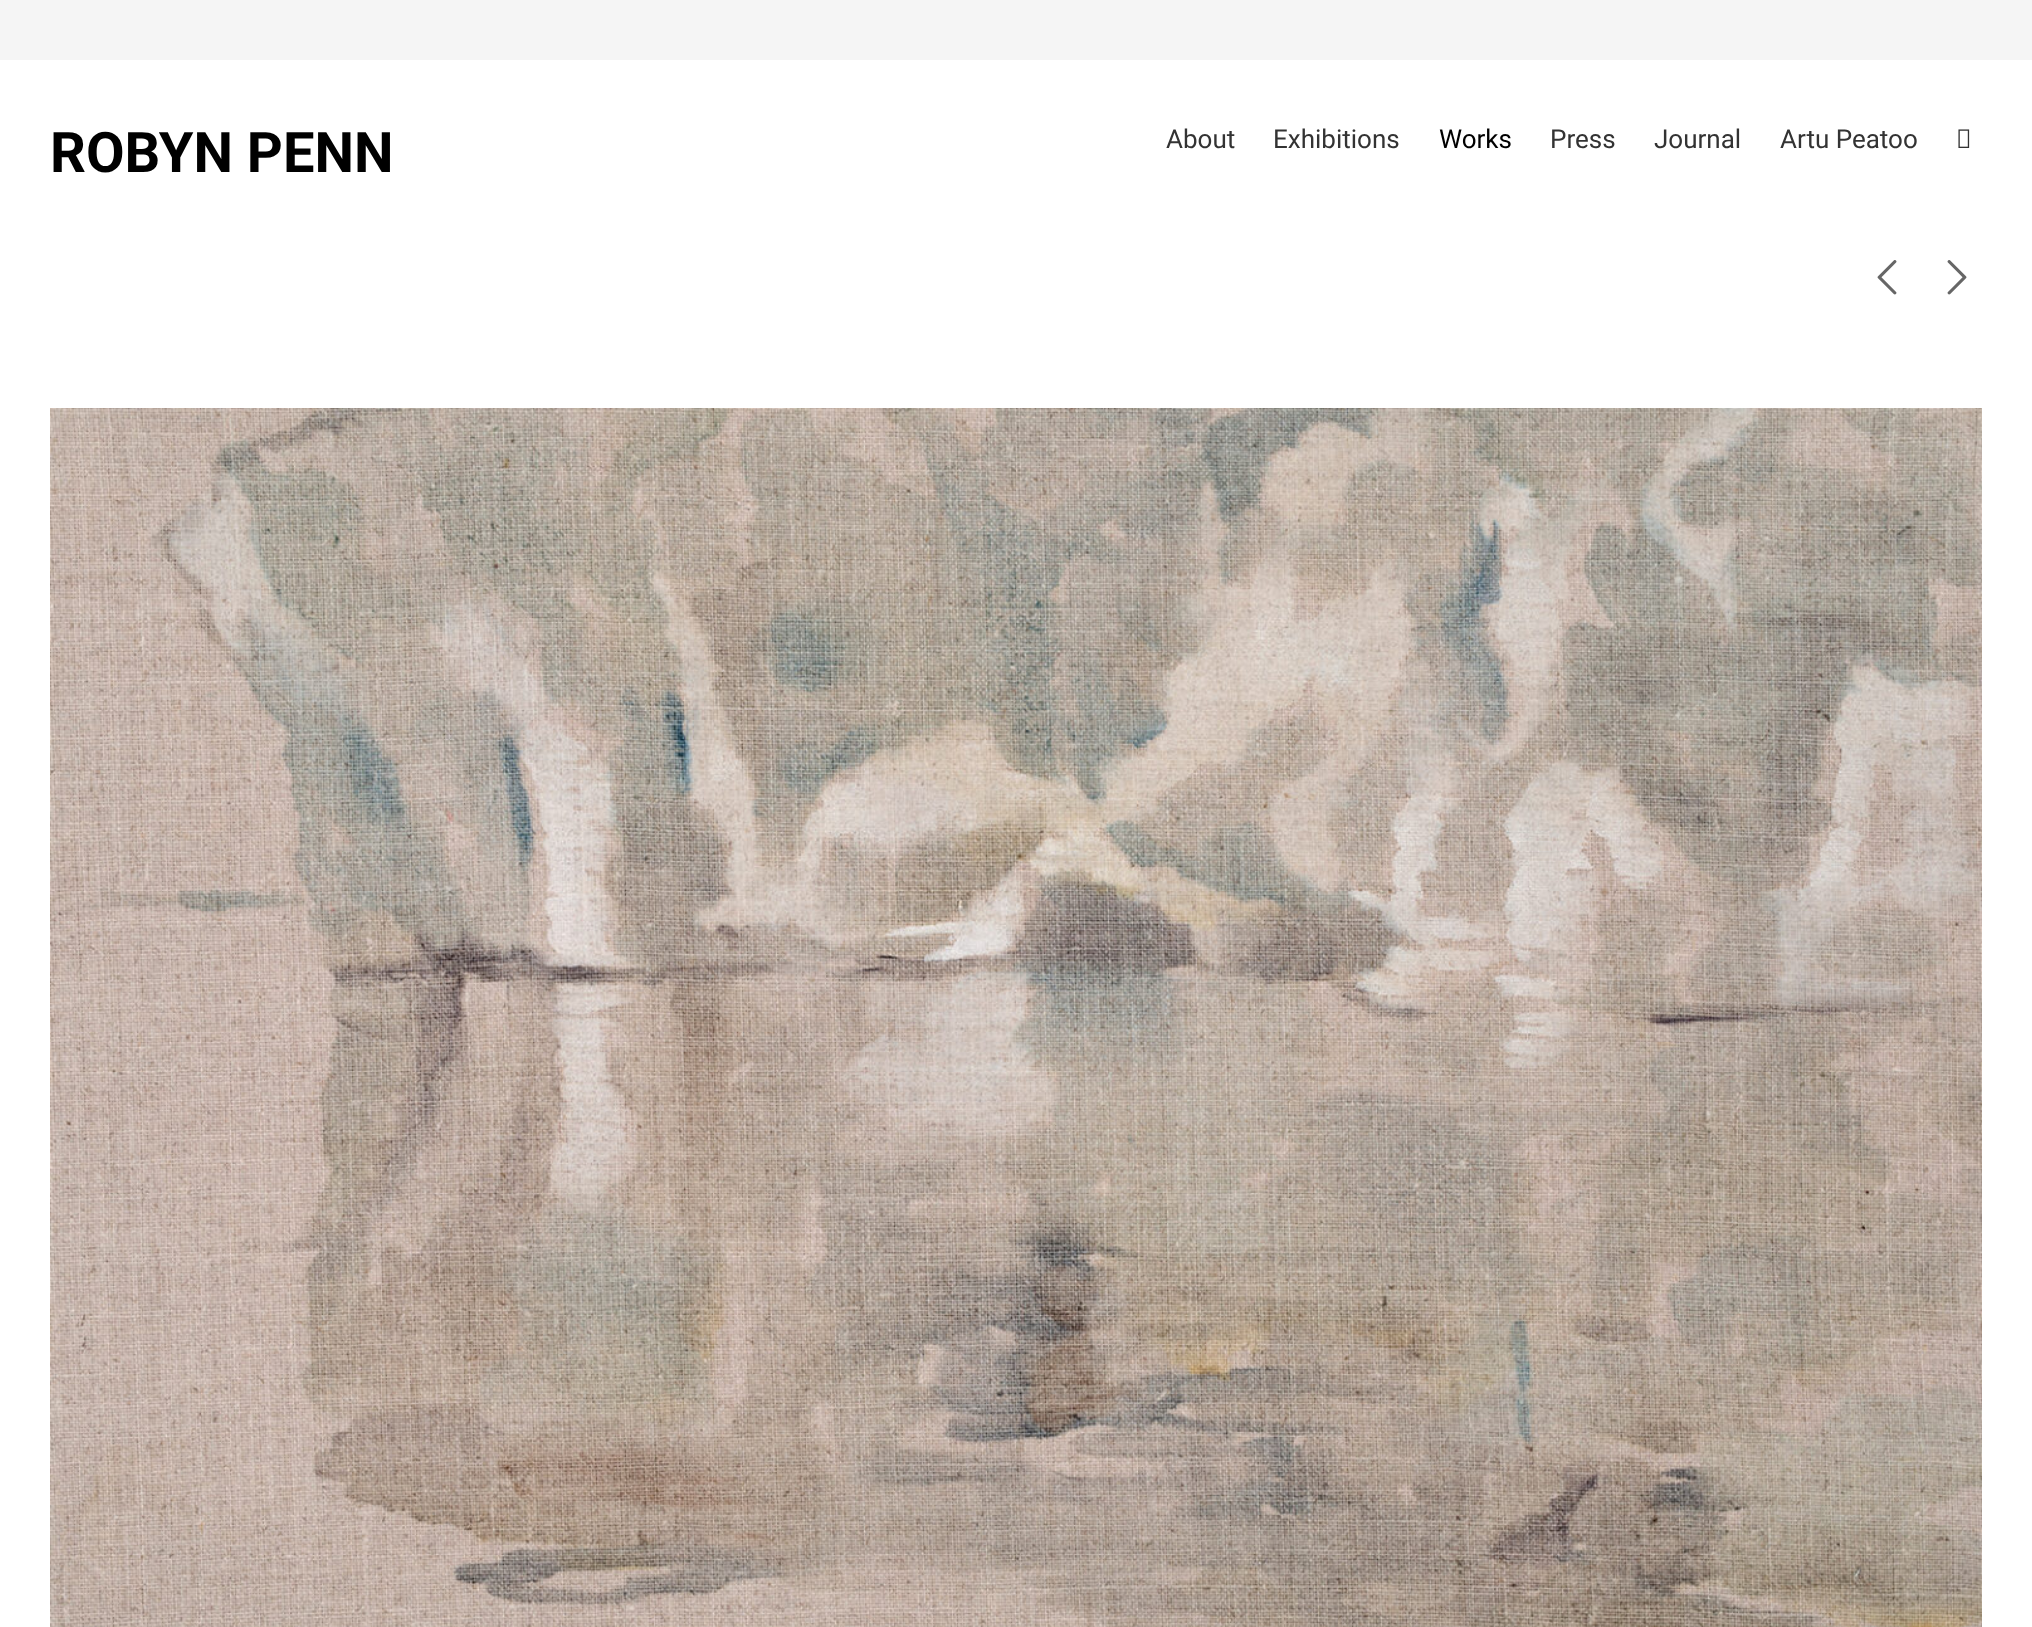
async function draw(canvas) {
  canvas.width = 2032;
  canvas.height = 1627;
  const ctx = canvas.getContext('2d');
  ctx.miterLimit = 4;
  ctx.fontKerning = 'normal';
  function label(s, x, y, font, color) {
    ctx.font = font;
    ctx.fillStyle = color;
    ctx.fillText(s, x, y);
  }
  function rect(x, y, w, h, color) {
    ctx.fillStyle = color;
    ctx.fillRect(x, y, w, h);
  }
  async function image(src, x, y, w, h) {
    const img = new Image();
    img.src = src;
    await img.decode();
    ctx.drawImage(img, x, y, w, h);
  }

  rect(0, 0, 2032, 1627, '#f5f5f5');
  rect(0, 60, 2032, 1567, '#fff');
  label('ROBYN PENN', 50, 172, 'bold 56px Roboto', '#000');
  label('About', 1166, 148, '26px Roboto', '#333');
  label('Exhibitions', 1273, 148, '26px Roboto', '#333');
  label('Works', 1439, 148, '26px Roboto', '#000');
  label('Press', 1550, 148, '26px Roboto', '#333');
  label('Journal', 1654, 148, '26px Roboto', '#333');
  label('Artu Peatoo', 1780, 148, '26px Roboto', '#333');
  await image('assets/img1.png', 1958, 129, 12, 19);
  await image('assets/img2.png', 1877, 260, 20, 35);
  await image('assets/img3.png', 1947, 260, 20, 35);
  await image('assets/img4.png', 50, 408, 1932, 1219);
}

draw(document.querySelector('canvas'));
